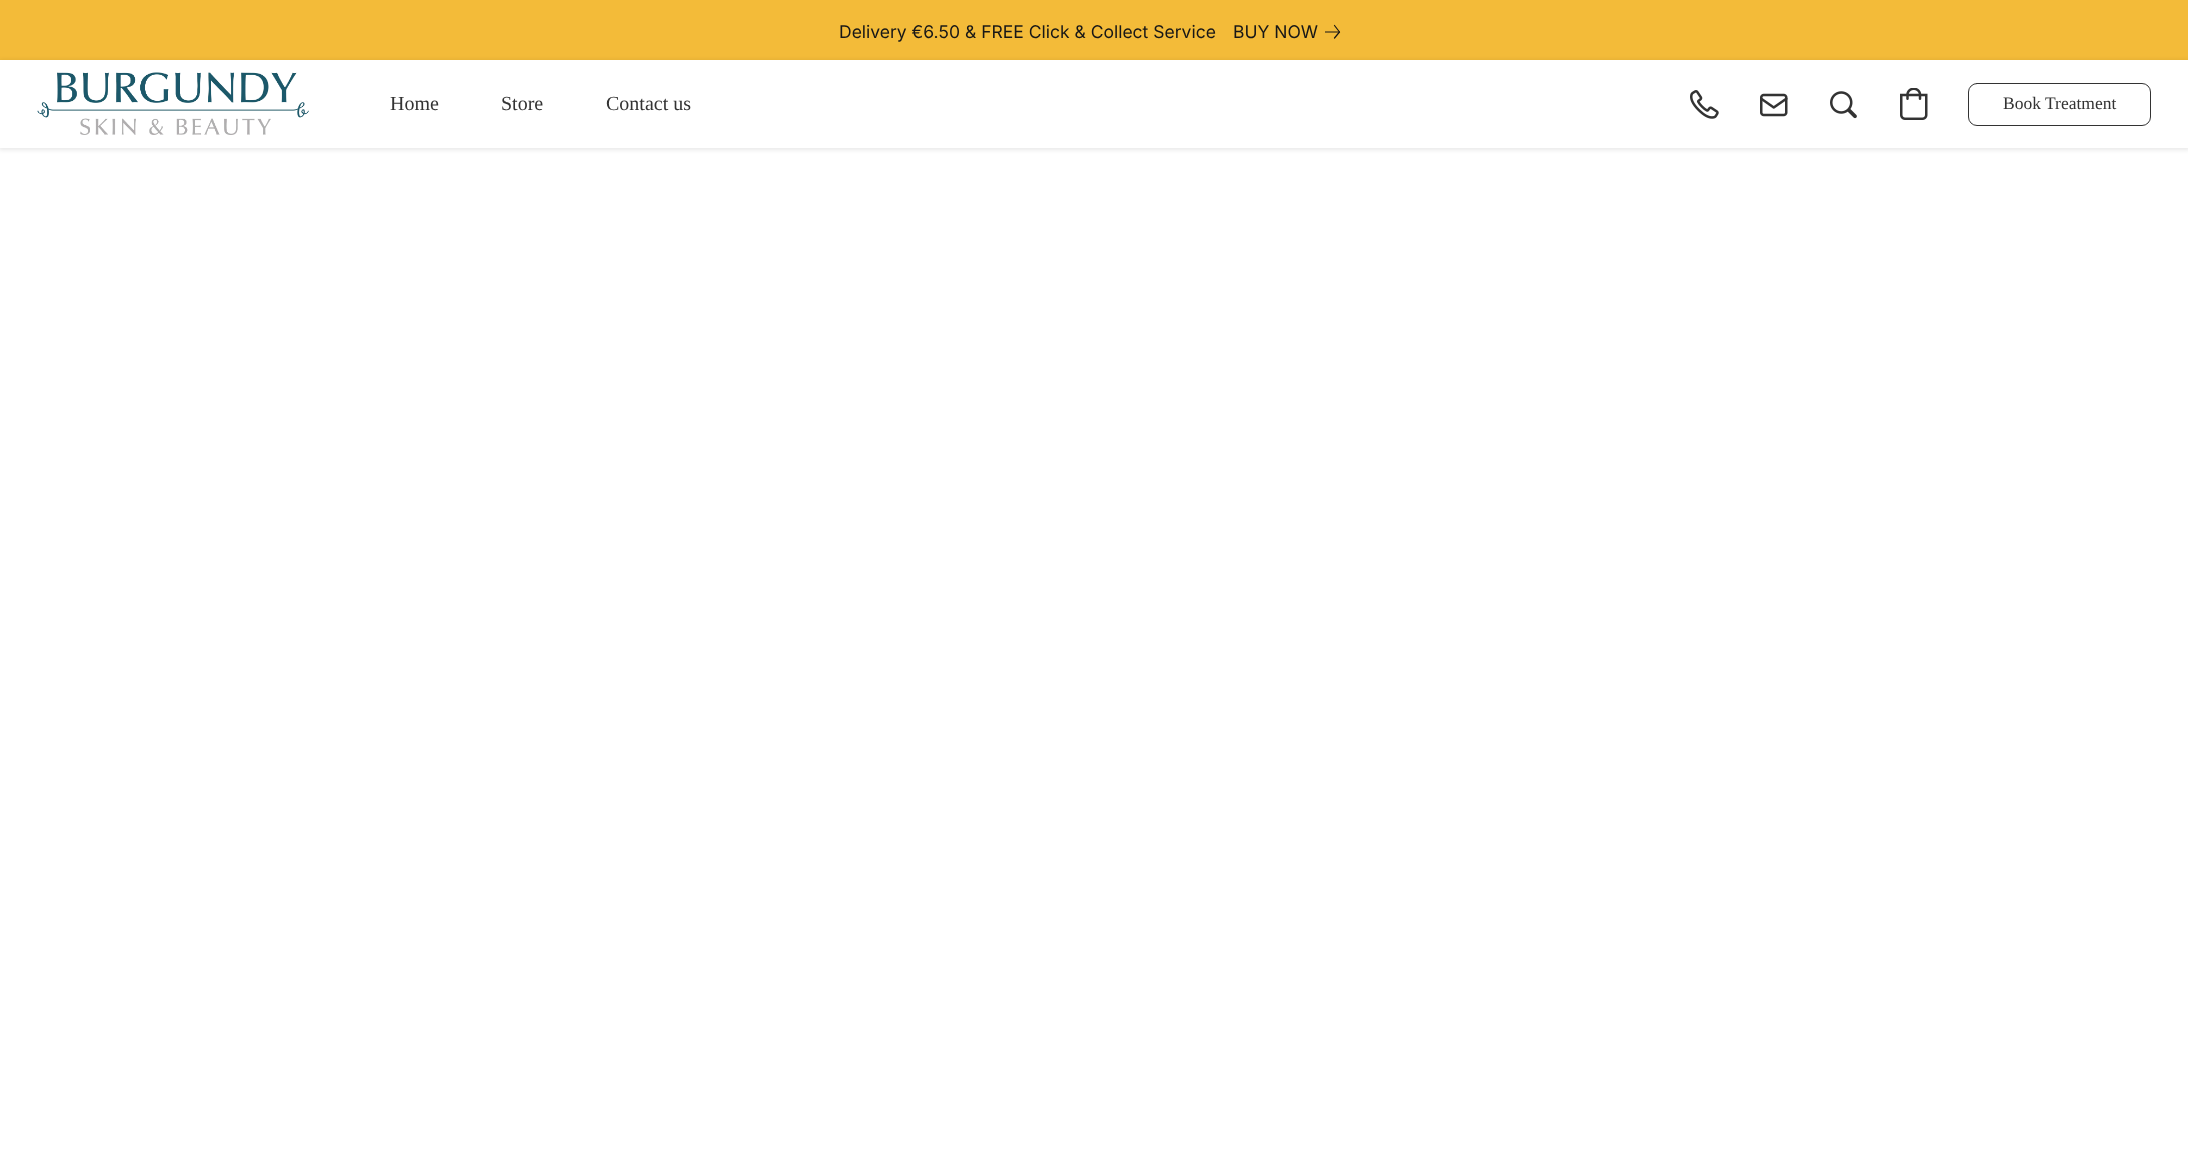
async function draw(canvas) {
  canvas.width = 2188;
  canvas.height = 1174;
  const ctx = canvas.getContext('2d');
  ctx.miterLimit = 4;
  ctx.fontKerning = 'normal';
  function label(s, x, y, font, color) {
    ctx.font = font;
    ctx.fillStyle = color;
    ctx.fillText(s, x, y);
  }
  function rect(x, y, w, h, color) {
    ctx.fillStyle = color;
    ctx.fillRect(x, y, w, h);
  }
  async function image(src, x, y, w, h) {
    const img = new Image();
    img.src = src;
    await img.decode();
    ctx.drawImage(img, x, y, w, h);
  }
  let path;

  rect(0, 0, 2188, 1174, '#fff');
  rect(0, 0, 2188, 60, '#f3bb39');
  label('Delivery €6.50 & FREE Click & Collect Service', 839, 38, '17.5px Inter', '#171717');
  label('BUY NOW', 1233, 38, '17.5px Inter', '#171717');
  path = new Path2D('M1334.5 25.5L1339.5 32L1334.5 38');
  ctx.strokeStyle = '#171717';
  ctx.lineWidth = 1.2;
  ctx.lineCap = 'round';
  ctx.lineJoin = 'round';
  ctx.stroke(path);
  ctx.save();
  ctx.beginPath();
  ctx.rect(1325, 25, 15, 14);
  ctx.clip();
  path = new Path2D('M1339.5 32H1323');
  ctx.lineJoin = 'miter';
  ctx.stroke(path);
  ctx.restore();
  ctx.fillStyle = '#00000017';
  ctx.filter = 'blur(2px)';
  ctx.beginPath();
  ctx.rect(-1, 60, 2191, 90);
  ctx.fill();
  ctx.filter = 'none';
  rect(0, 60, 2188, 88, '#fff');
  await image('assets/img1.png', 37, 72, 272, 63);
  label('Home', 390, 110, '20px Liberation Serif', '#333');
  label('Store', 501, 110, '20px Liberation Serif', '#333');
  label('Contact us', 606, 110, '20px Liberation Serif', '#333');
  await image('assets/img2.png', 1690, 90, 29, 29);
  await image('assets/img3.png', 1760, 93, 28, 24);
  await image('assets/img4.png', 1830, 91, 27, 28);
  await image('assets/img5.png', 1900, 88, 28, 32);
  ctx.beginPath();
  ctx.roundRect(1968.5, 83.5, 182, 42, 8.5);
  ctx.strokeStyle = '#333';
  ctx.lineWidth = 1;
  ctx.lineJoin = 'miter';
  ctx.stroke();
  label('Book Treatment', 2003, 109, '17.5px Liberation Serif', '#333');
}

draw(document.querySelector('canvas'));
